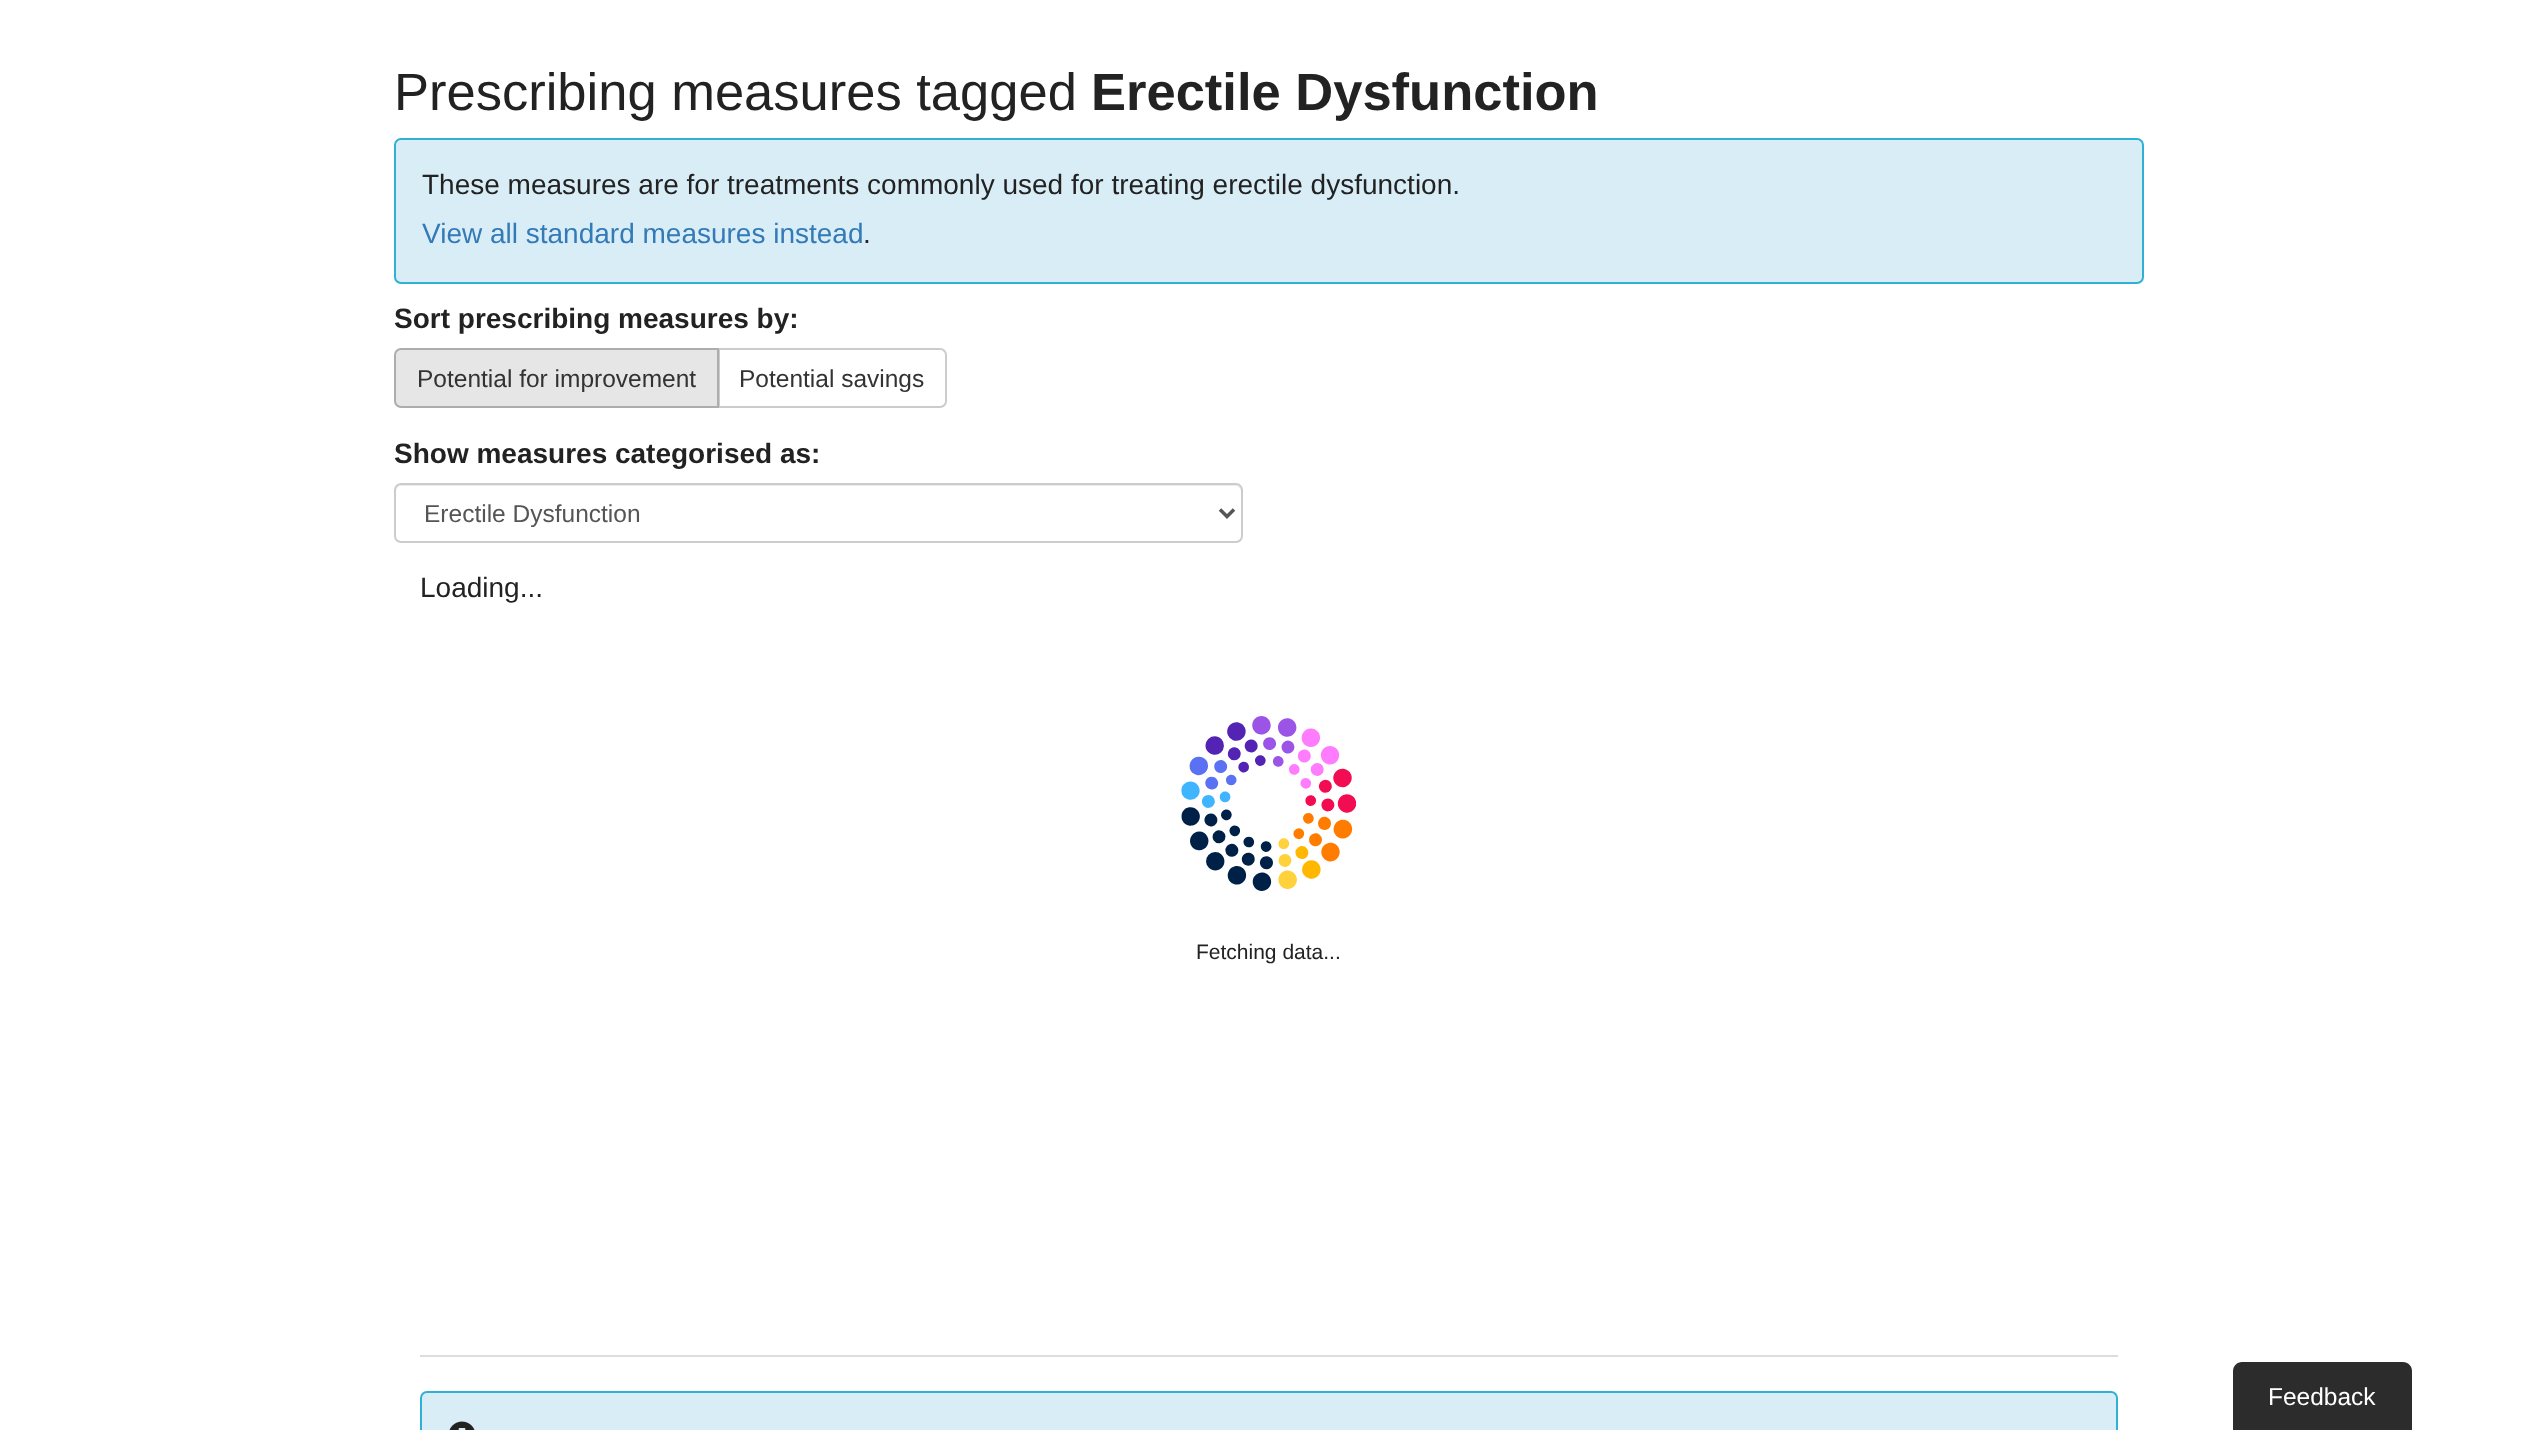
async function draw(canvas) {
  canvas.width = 2537;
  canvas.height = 1430;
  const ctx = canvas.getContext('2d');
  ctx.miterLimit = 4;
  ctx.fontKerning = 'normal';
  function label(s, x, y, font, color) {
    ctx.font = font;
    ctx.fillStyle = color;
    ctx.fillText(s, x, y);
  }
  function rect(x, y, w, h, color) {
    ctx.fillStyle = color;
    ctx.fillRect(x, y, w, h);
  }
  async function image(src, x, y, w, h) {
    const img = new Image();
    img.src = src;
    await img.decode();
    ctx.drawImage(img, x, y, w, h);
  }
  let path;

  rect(0, 0, 2537, 1430, '#fff');
  label('Prescribing measures tagged', 394, 110, '52.5px Liberation Sans', '#222');
  label('Erectile Dysfunction', 1091, 110, 'bold 52.5px Liberation Sans', '#222');
  ctx.fillStyle = '#d9edf7';
  ctx.beginPath();
  ctx.roundRect(395, 139, 1748, 144, 6);
  ctx.fill();
  ctx.strokeStyle = '#31b0d5';
  ctx.lineWidth = 2;
  ctx.stroke();
  label('These measures are for treatments commonly used for treating erectile dysfunction.', 422, 194, '28px Liberation Sans', '#222');
  label('View all standard measures instead', 422, 243, '28px Liberation Sans', '#337ab7');
  label('.', 863, 243, '28px Liberation Sans', '#222');
  label('Sort prescribing measures by:', 394, 328, 'bold 28px Liberation Sans', '#222');
  ctx.beginPath();
  ctx.roundRect(719, 349, 227, 58, [0, 6, 6, 0]);
  ctx.strokeStyle = '#ccc';
  ctx.stroke();
  ctx.fillStyle = '#e6e6e6';
  ctx.beginPath();
  ctx.roundRect(395, 349, 323, 58, [6, 0, 0, 6]);
  ctx.fill();
  ctx.strokeStyle = '#adadad';
  ctx.stroke();
  label('Potential for improvement', 417, 387, '24.5px Liberation Sans', '#333');
  label('Potential savings', 739, 387, '24.5px Liberation Sans', '#333');
  label('Show measures categorised as:', 394, 463, 'bold 28px Liberation Sans', '#222');
  ctx.fillStyle = '#ececec';
  path = new Path2D('M401 486H1236C1238 486 1241 489 1241 492V490C1241 487 1239 485 1236 485H401C398 485 396 487 396 490V492C396 489 398 486 401 486Z');
  ctx.fill(path);
  ctx.beginPath();
  ctx.roundRect(395, 484, 847, 58, 6);
  ctx.strokeStyle = '#ccc';
  ctx.stroke();
  path = new Path2D('M1220 509.5L1227 516.5L1234 509.5');
  ctx.strokeStyle = '#555';
  ctx.lineWidth = 3.5;
  ctx.stroke(path);
  label('Erectile Dysfunction', 424, 522, '24.5px Liberation Sans', '#555');
  label('Loading...', 420, 597, '28px Liberation Sans', '#222');
  await image('assets/img1.png', 1181, 716, 175, 175);
  label('Fetching data...', 1196, 959, '21px Liberation Sans', '#222');
  rect(420, 1355, 1698, 2, '#ddd');
  ctx.fillStyle = '#d9edf7';
  ctx.beginPath();
  ctx.roundRect(421, 1392, 1696, 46, 6);
  ctx.fill();
  ctx.strokeStyle = '#31b0d5';
  ctx.lineWidth = 2;
  ctx.stroke();
  await image('assets/img2.png', 449, 1421, 26, 9);
  ctx.fillStyle = '#2c2c2c';
  path = new Path2D('M2242 1362H2403C2408 1362 2412 1366 2412 1371V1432H2233V1371C2233 1366 2237 1362 2242 1362Z');
  ctx.fill(path);
  label('Feedback', 2268, 1405, '24.5px Liberation Sans', '#fff');
}

draw(document.querySelector('canvas'));
